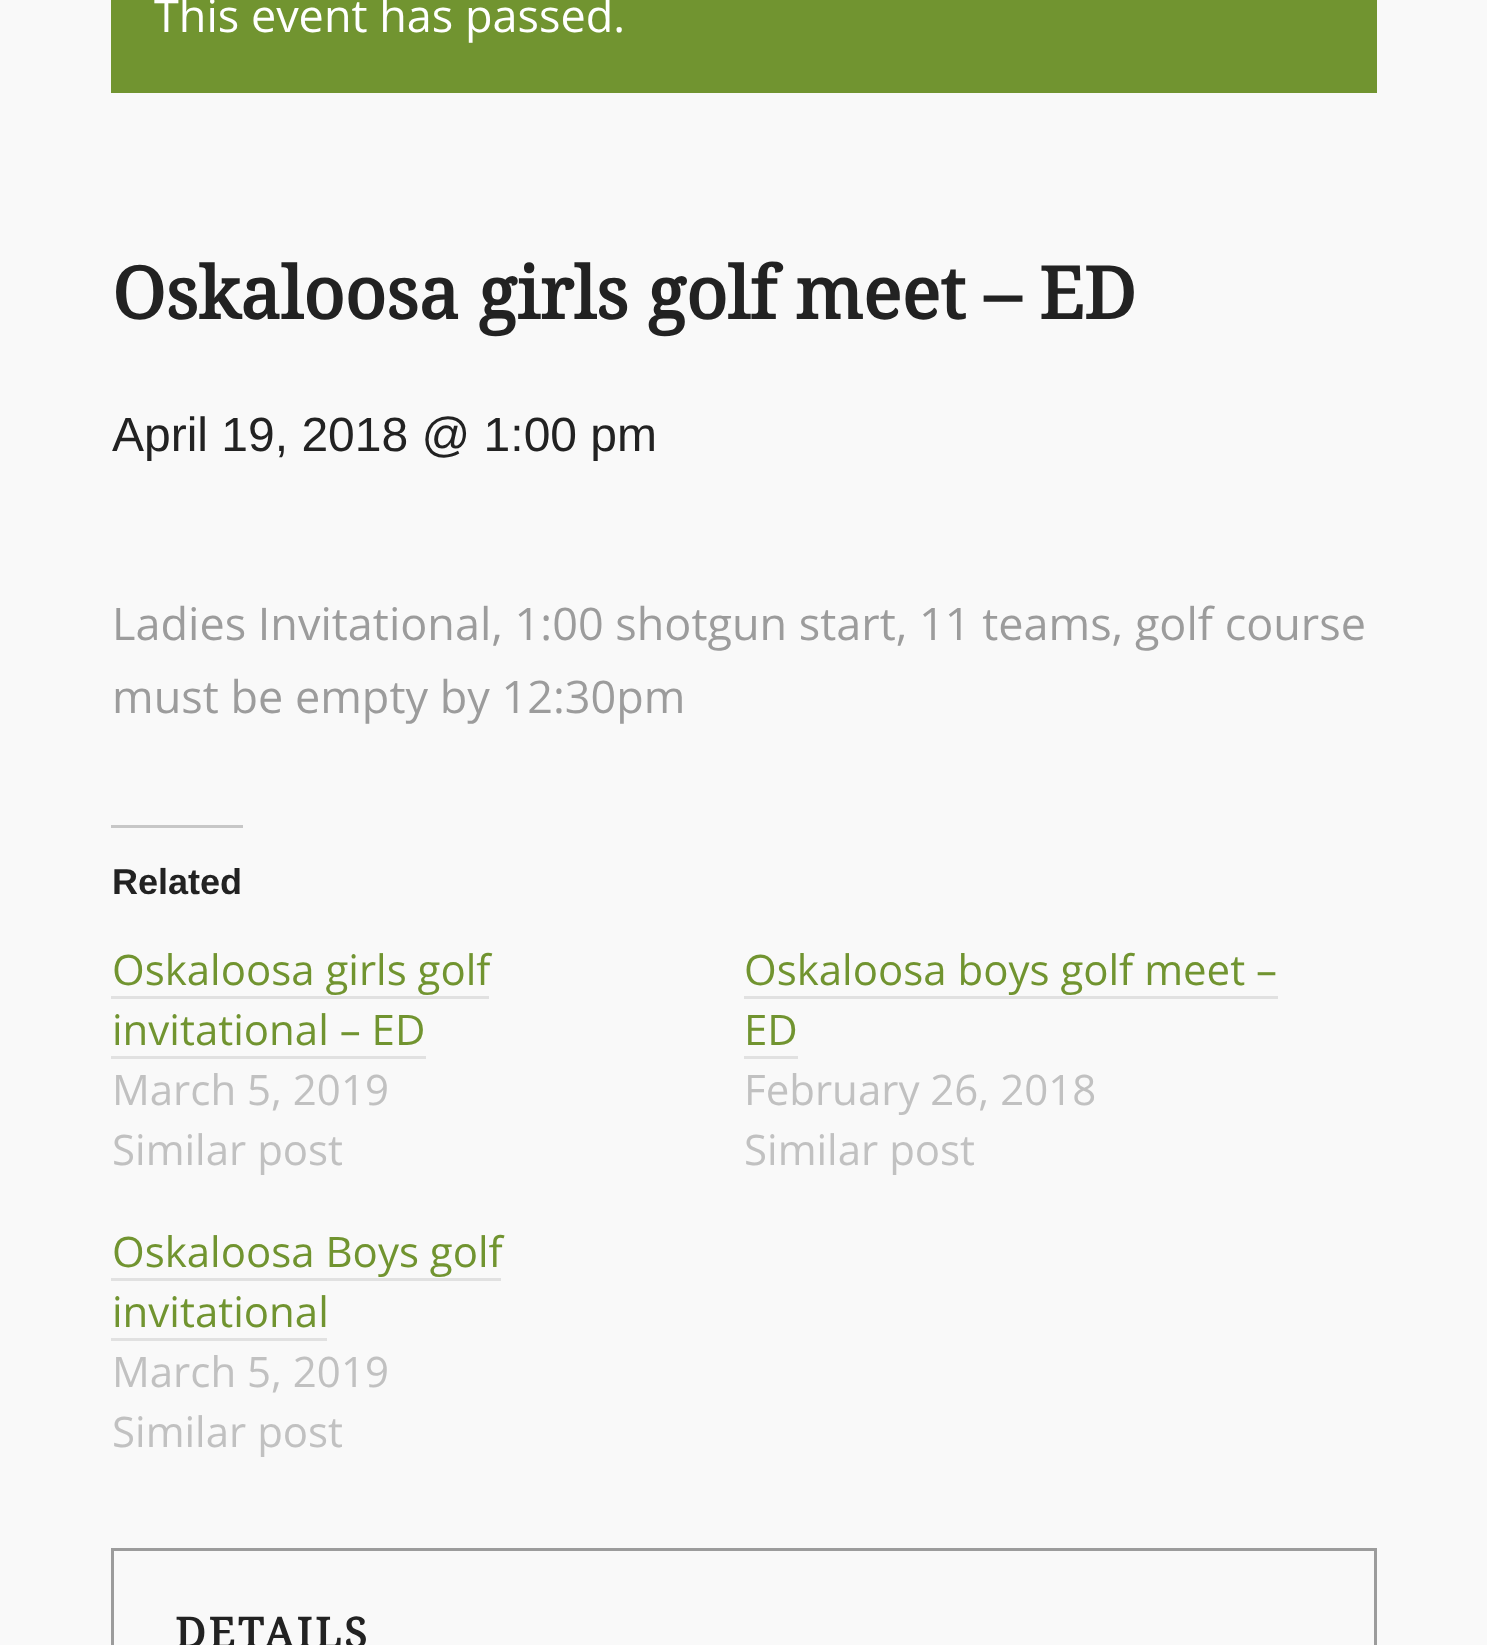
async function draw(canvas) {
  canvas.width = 1487;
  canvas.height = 1645;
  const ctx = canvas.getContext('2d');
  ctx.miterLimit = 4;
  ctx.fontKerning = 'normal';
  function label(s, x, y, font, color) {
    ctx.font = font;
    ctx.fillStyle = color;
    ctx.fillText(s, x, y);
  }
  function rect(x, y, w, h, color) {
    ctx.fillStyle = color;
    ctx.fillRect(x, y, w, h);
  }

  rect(0, 0, 1487, 1645, '#f9f9f9');
  rect(111, 0, 1266, 93, '#719430');
  label('This event has passed.', 154, 32, '45px Open Sans', '#fff');
  label('Oskaloosa girls golf meet – ED', 112, 319, 'bold 72px Droid Serif', '#222');
  label('April 19, 2018 @ 1:00 pm', 112, 451, '48px Liberation Sans', '#222');
  label('Ladies Invitational, 1:00 shotgun start, 11 teams, golf course', 112, 640, '45px Open Sans', '#9c9c9c');
  label('must be empty by 12:30pm', 112, 713, '45px Open Sans', '#9c9c9c');
  rect(111, 825, 132, 3, '#c7c7c7');
  label('Related', 112, 894, 'bold 36px Liberation Sans', '#222');
  label('Oskaloosa girls golf', 112, 985, '42px Open Sans', '#719430');
  rect(111, 996, 378, 3, '#e1e1e1');
  label('invitational – ED', 112, 1045, '42px Open Sans', '#719430');
  rect(111, 1056, 315, 3, '#e1e1e1');
  label('March 5, 2019', 112, 1105, '42px Open Sans', '#c1c1c1');
  label('Similar post', 112, 1165, '42px Open Sans', '#c1c1c1');
  label('Oskaloosa boys golf meet –', 744, 985, '42px Open Sans', '#719430');
  rect(744, 996, 534, 3, '#e1e1e1');
  label('ED', 744, 1045, '42px Open Sans', '#719430');
  rect(744, 1056, 54, 3, '#e1e1e1');
  label('February 26, 2018', 744, 1105, '42px Open Sans', '#c1c1c1');
  label('Similar post', 744, 1165, '42px Open Sans', '#c1c1c1');
  label('Oskaloosa Boys golf', 112, 1267, '42px Open Sans', '#719430');
  rect(111, 1278, 390, 3, '#e1e1e1');
  label('invitational', 112, 1327, '42px Open Sans', '#719430');
  rect(111, 1338, 216, 3, '#e1e1e1');
  label('March 5, 2019', 112, 1387, '42px Open Sans', '#c1c1c1');
  label('Similar post', 112, 1447, '42px Open Sans', '#c1c1c1');
  ctx.strokeStyle = '#9c9c9c';
  ctx.lineWidth = 3;
  ctx.strokeRect(112.5, 1549.5, 1263, 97);
  ctx.letterSpacing = '3px';
  label('DETAILS', 175, 1648, 'bold 42px Droid Serif', '#222');
}

draw(document.querySelector('canvas'));
